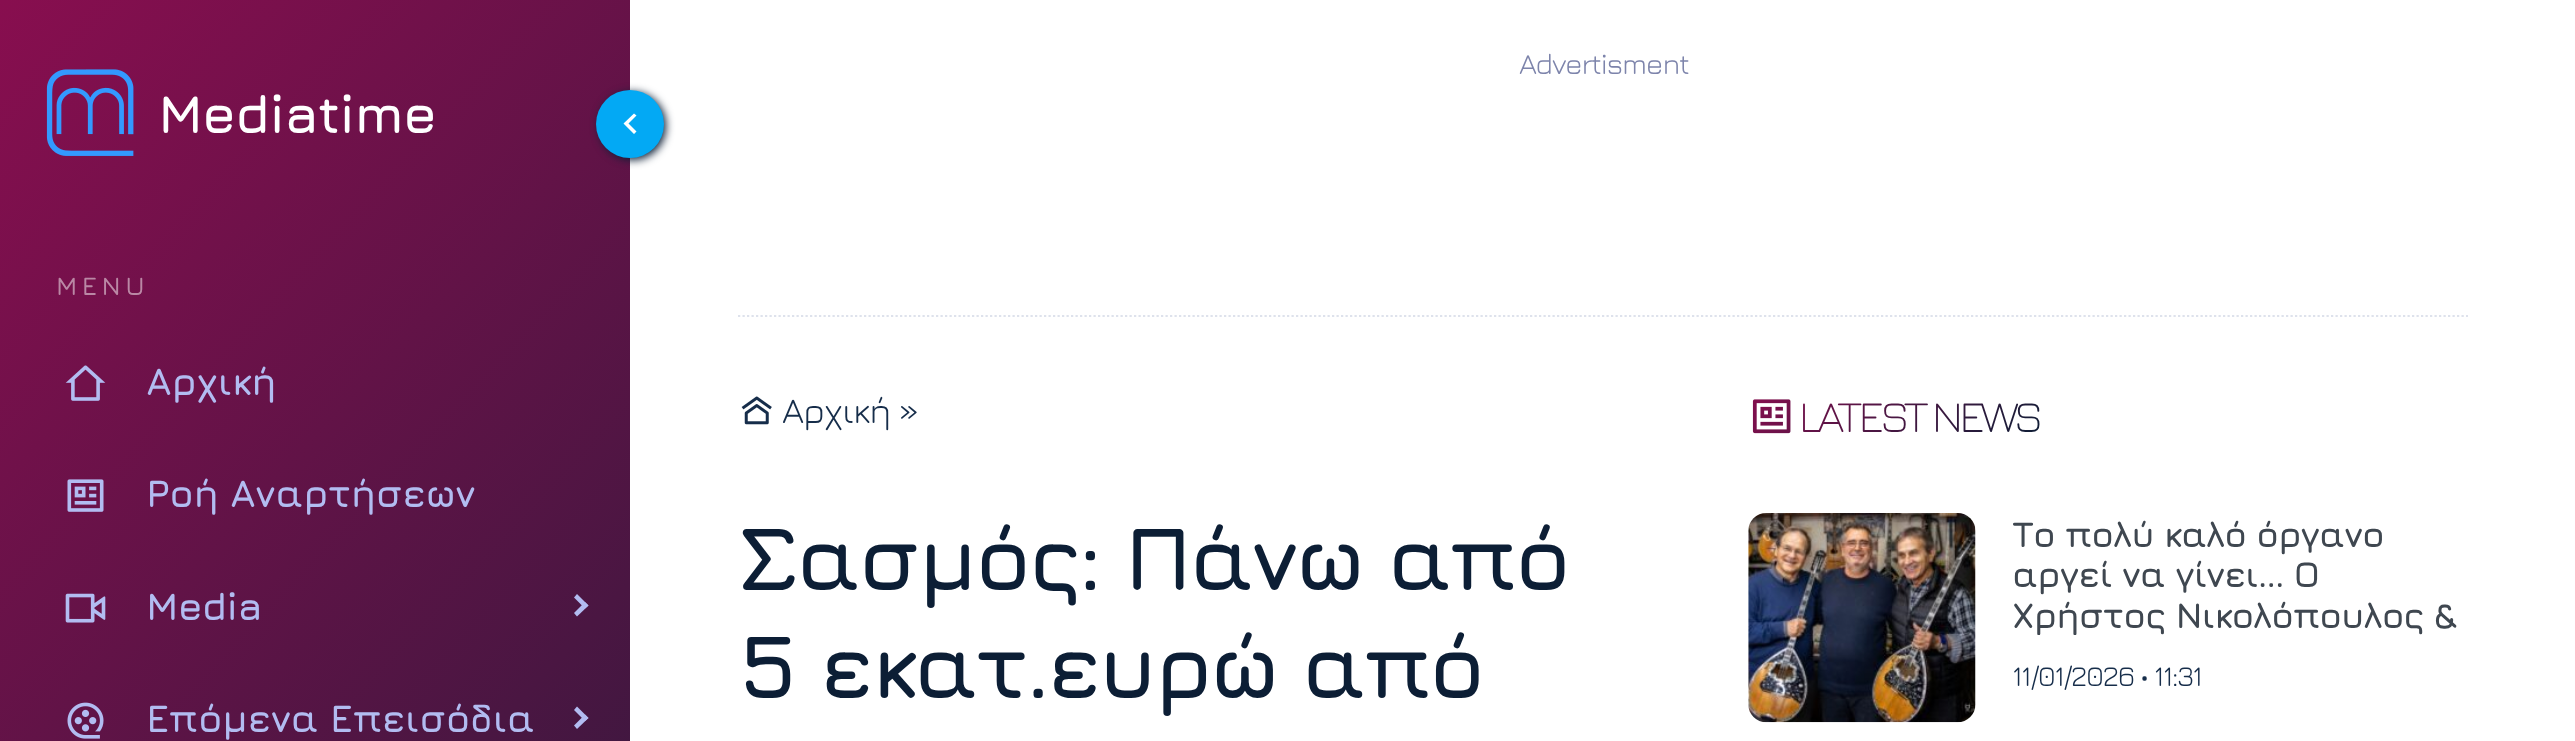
async function draw(canvas) {
  canvas.width = 2575;
  canvas.height = 741;
  const ctx = canvas.getContext('2d');
  ctx.miterLimit = 4;
  ctx.fontKerning = 'normal';
  function label(s, x, y, font, color) {
    ctx.font = font;
    ctx.fillStyle = color;
    ctx.fillText(s, x, y);
  }
  function rect(x, y, w, h, color) {
    ctx.fillStyle = color;
    ctx.fillRect(x, y, w, h);
  }
  async function image(src, x, y, w, h) {
    const img = new Image();
    img.src = src;
    await img.decode();
    ctx.drawImage(img, x, y, w, h);
  }
  let gradient, path;

  rect(0, 0, 2575, 741, '#fff');
  gradient = ctx.createLinearGradient(942, 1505, -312, 335);
  gradient.addColorStop(0, '#0c1e35');
  gradient.addColorStop(1, '#880e4f');
  ctx.fillStyle = gradient;
  ctx.fillRect(0, 0, 630, 741);
  await image('assets/img1.png', 46, 69, 88, 87);
  ctx.letterSpacing = '-1.1px';
  label('Mediatime', 158, 133, 'bold 54px Jura', '#fff');
  ctx.letterSpacing = '4.5px';
  label('MENU', 56, 295, '600 26px Jura', '#ba88a5');
  await image('assets/img2.png', 65, 365, 41, 36);
  ctx.letterSpacing = '-0.6px';
  label('Αρχική', 146, 395, 'bold 38.9px Jura', '#b2bcf1');
  await image('assets/img3.png', 67, 479, 37, 33);
  label('Ροή Αναρτήσεων', 146, 507, 'bold 38.9px Jura', '#b2bcf1');
  await image('assets/img4.png', 65, 593, 41, 30);
  label('Media', 146, 620, 'bold 38.9px Jura', '#b2bcf1');
  path = new Path2D('M574 597.5L577 594L588.5 605.5L585 608.5Z');
  ctx.fill(path);
  path = new Path2D('M574 613L585 602L588.5 605.5L577 616.5Z');
  ctx.fill(path);
  await image('assets/img5.png', 67, 702, 37, 37);
  label('Επόμενα Επεισόδια', 146, 732, 'bold 38.9px Jura', '#b2bcf1');
  path = new Path2D('M574 710L577 706.5L588.5 718L585 721Z');
  ctx.fill(path);
  path = new Path2D('M574 725.5L585 714.5L588.5 718L577 729Z');
  ctx.fill(path);
  ctx.fillStyle = '#0c1e35';
  ctx.filter = 'blur(4.5px)';
  ctx.beginPath();
  ctx.roundRect(599, 92, 67, 68, 33.5);
  ctx.fill();
  ctx.filter = 'none';
  ctx.fillStyle = '#03a9f4';
  ctx.beginPath();
  ctx.arc(630, 124, 34, 0, 2 * Math.PI);
  ctx.fill();
  ctx.fillStyle = '#fff';
  path = new Path2D('M628.5 123.5L636.5 131.5L634 134L623.5 123.5L634 113.5L636.5 115.5Z');
  ctx.fill(path);
  path = new Path2D('M738 316H2468');
  ctx.strokeStyle = '#dee2ec';
  ctx.lineWidth = 2.2;
  ctx.setLineDash([2.25, 2.25]);
  ctx.stroke(path);
  ctx.letterSpacing = '-1.1px';
  label('Advertisment', 1519, 74, '29.25px Jura', '#7d84ab');
  await image('assets/img6.png', 741, 396, 31, 29);
  label('Αρχική »', 782, 423, '36px Jura', '#162d4a');
  ctx.letterSpacing = '-3.4px';
  label('Σασμός: Πάνω από', 738, 590, 'bold 90px Jura', '#0c1e35');
  label('5 εκατ.ευρώ από', 738, 698, 'bold 90px Jura', '#0c1e35');
  await image('assets/img7.png', 1752, 399, 39, 35);
  ctx.font = '300 45px Jura';
  gradient = ctx.createLinearGradient(1980, 501, 1808, 329);
  gradient.addColorStop(0, '#0c1e35');
  gradient.addColorStop(1, '#880e4f');
  ctx.fillStyle = gradient;
  ctx.fillText('LATEST NEWS', 1799, 432);
  await image('assets/img8.png', 1748, 513, 228, 210);
  ctx.letterSpacing = '-1.1px';
  label('Το πολύ καλό όργανο', 2012, 547, 'bold 36px Jura', '#3f4750');
  label('αργεί να γίνει… Ο', 2012, 587, 'bold 36px Jura', '#3f4750');
  ctx.save();
  ctx.beginPath();
  ctx.rect(2012, 513, 456, 122);
  ctx.clip();
  label('Χρήστος Νικολόπουλος &', 2012, 628, 'bold 36px Jura', '#3f4750');
  ctx.restore();
  label('11/01/2026 • 11:31', 2012, 686, '28.75px Jura', '#162d4a');
}

draw(document.querySelector('canvas'));
